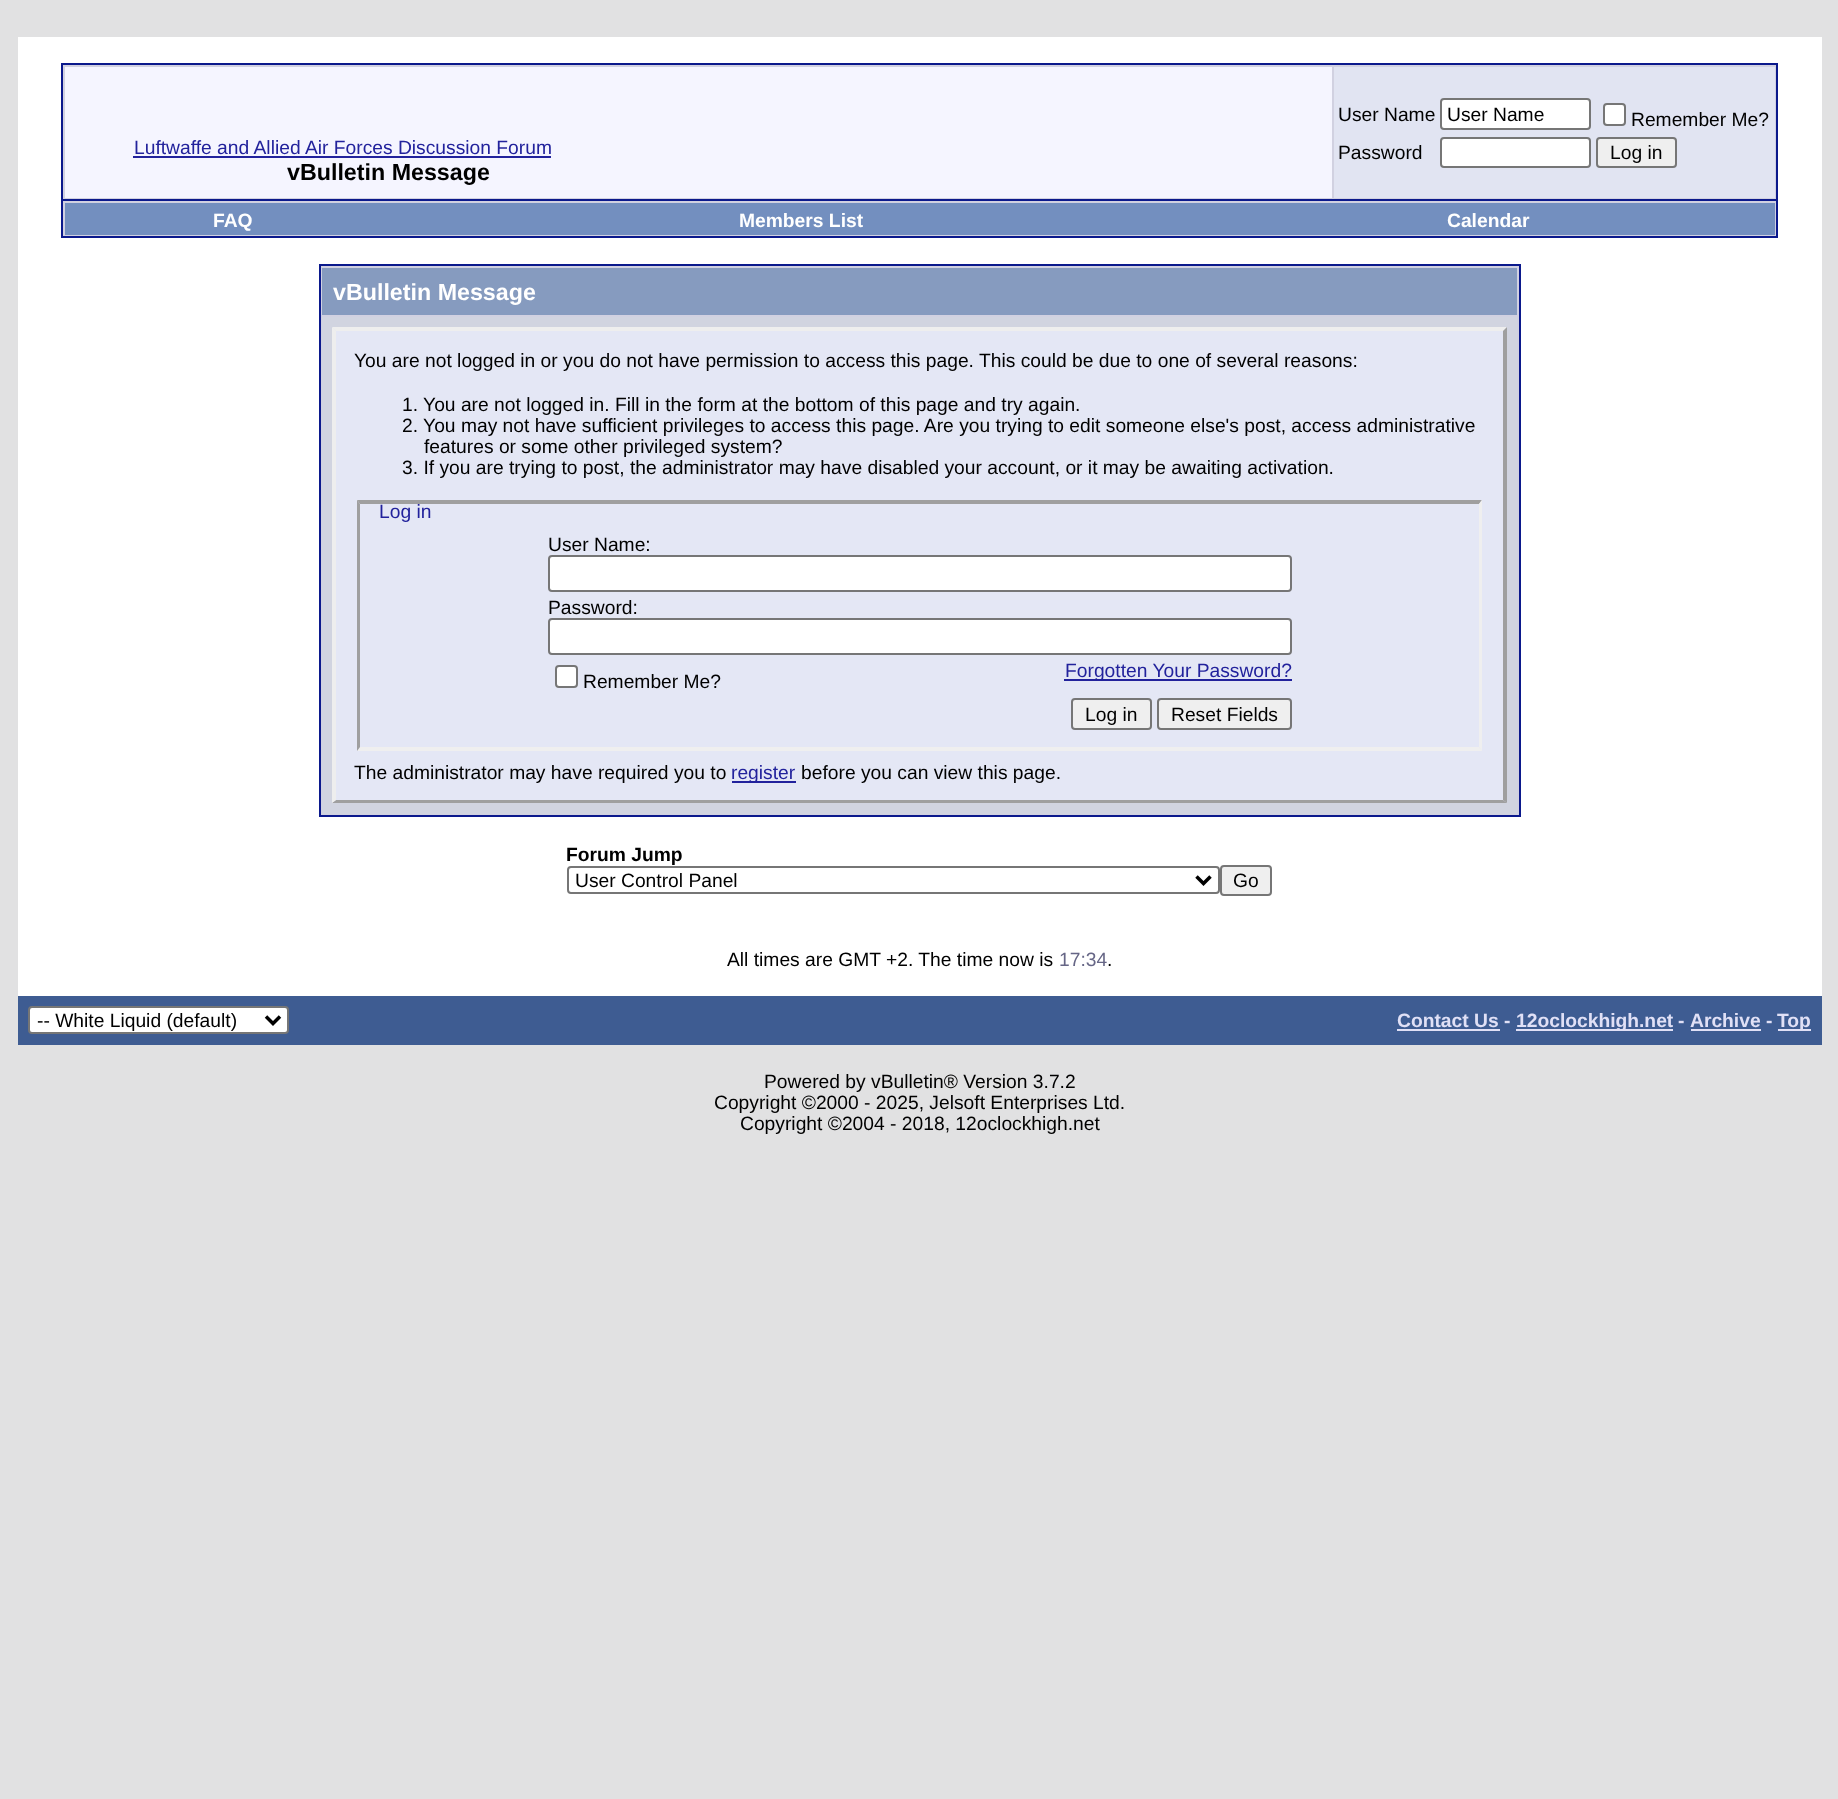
async function draw(canvas) {
  canvas.width = 1838;
  canvas.height = 1799;
  const ctx = canvas.getContext('2d');
  ctx.miterLimit = 4;
  ctx.fontKerning = 'normal';
  function label(s, x, y, font, color) {
    ctx.font = font;
    ctx.fillStyle = color;
    ctx.fillText(s, x, y);
  }
  function rect(x, y, w, h, color) {
    ctx.fillStyle = color;
    ctx.fillRect(x, y, w, h);
  }
  let path;

  rect(0, 0, 1838, 1799, '#e1e1e2');
  rect(18, 37, 1804, 959, '#fff');
  ctx.fillStyle = '#d1d1e1';
  ctx.beginPath();
  ctx.rect(62, 64, 1715, 136);
  ctx.fill();
  ctx.strokeStyle = '#0b198c';
  ctx.lineWidth = 2;
  ctx.stroke();
  rect(65, 67, 1267, 131, '#f5f5ff');
  label('Luftwaffe and Allied Air Forces Discussion Forum', 134, 154, '19.25px Liberation Sans', '#22229c');
  rect(133, 156, 418, 2, '#22229c');
  label('vBulletin Message', 287, 180, 'bold 23.25px Liberation Sans', '#000');
  rect(1334, 67, 441, 131, '#e1e4f2');
  label('User Name', 1338, 121, '19.25px Liberation Sans', '#000');
  ctx.fillStyle = '#fff';
  ctx.beginPath();
  ctx.roundRect(1441, 99, 149, 30, 3);
  ctx.fill();
  ctx.strokeStyle = '#767676';
  ctx.stroke();
  label('User Name', 1447, 121, '19.25px Liberation Sans', '#000');
  ctx.fillStyle = '#fff';
  ctx.beginPath();
  ctx.roundRect(1604, 104, 21, 21, 3);
  ctx.fill();
  ctx.stroke();
  label('Remember Me?', 1631, 126, '19.25px Liberation Sans', '#000');
  label('Password', 1338, 159, '19.25px Liberation Sans', '#000');
  ctx.fillStyle = '#fff';
  ctx.beginPath();
  ctx.roundRect(1441, 138, 149, 29, 3);
  ctx.fill();
  ctx.stroke();
  ctx.fillStyle = '#efefef';
  ctx.beginPath();
  ctx.roundRect(1597, 138, 79, 29, 3);
  ctx.fill();
  ctx.stroke();
  label('Log in', 1610, 159, '19.25px Liberation Sans', '#000');
  rect(63, 201, 1713, 35, '#d1d1e1');
  rect(1776, 201, 2, 37, '#0b198c');
  rect(61, 236, 1717, 2, '#0b198c');
  rect(61, 201, 2, 37, '#0b198c');
  rect(65, 203, 1710, 32, '#738fbf');
  label('FAQ', 213, 227, 'bold 19.25px Liberation Sans', '#fff');
  label('Members List', 739, 227, 'bold 19.25px Liberation Sans', '#fff');
  label('Calendar', 1447, 227, 'bold 19.25px Liberation Sans', '#fff');
  ctx.fillStyle = '#d1d1e1';
  ctx.beginPath();
  ctx.rect(320, 265, 1200, 551);
  ctx.fill();
  ctx.strokeStyle = '#0b198c';
  ctx.stroke();
  rect(322, 268, 1195, 47, '#869bbf');
  label('vBulletin Message', 333, 300, 'bold 23.25px Liberation Sans', '#fff');
  rect(322, 317, 1195, 497, '#d1d4e0');
  rect(333, 327, 1174, 476, '#e4e7f5');
  ctx.fillStyle = '#eee';
  path = new Path2D('M332 327H1507L1503 331H336Z');
  ctx.fill(path);
  ctx.fillStyle = '#9f9f9f';
  path = new Path2D('M1507 327V803L1503 800V331Z');
  ctx.fill(path);
  path = new Path2D('M1507 803H332L336 800H1503Z');
  ctx.fill(path);
  ctx.fillStyle = '#eee';
  path = new Path2D('M332 803V327L336 331V800Z');
  ctx.fill(path);
  label('You are not logged in or you do not have permission to access this page. This could be due to one of several reasons:', 354, 367, '19.25px Liberation Sans', '#000');
  label('1. You are not logged in. Fill in the form at the bottom of this page and try again.', 402, 411, '19.25px Liberation Sans', '#000');
  label('2. You may not have sufficient privileges to access this page. Are you trying to edit someone else\'s post, access administrative', 402, 432, '19.25px Liberation Sans', '#000');
  label('features or some other privileged system?', 424, 453, '19.25px Liberation Sans', '#000');
  label('3. If you are trying to post, the administrator may have disabled your account, or it may be awaiting activation.', 402, 474, '19.25px Liberation Sans', '#000');
  ctx.fillStyle = '#9f9f9f';
  path = new Path2D('M357 500H1482L1479 504H360Z');
  ctx.fill(path);
  ctx.fillStyle = '#efefef';
  path = new Path2D('M1482 500V751L1479 747V504Z');
  ctx.fill(path);
  path = new Path2D('M1482 751H357L360 747H1479Z');
  ctx.fill(path);
  ctx.fillStyle = '#9f9f9f';
  path = new Path2D('M357 751V500L360 504V747Z');
  ctx.fill(path);
  label('Log in', 379, 518, '19.25px Liberation Sans', '#22229c');
  label('User Name:', 548, 551, '19.25px Liberation Sans', '#000');
  ctx.fillStyle = '#fff';
  ctx.beginPath();
  ctx.roundRect(549, 556, 742, 35, 3);
  ctx.fill();
  ctx.strokeStyle = '#767676';
  ctx.stroke();
  label('Password:', 548, 614, '19.25px Liberation Sans', '#000');
  ctx.fillStyle = '#fff';
  ctx.beginPath();
  ctx.roundRect(549, 619, 742, 35, 3);
  ctx.fill();
  ctx.stroke();
  ctx.beginPath();
  ctx.roundRect(556, 666, 21, 21, 3);
  ctx.fill();
  ctx.stroke();
  label('Remember Me?', 583, 688, '19.25px Liberation Sans', '#000');
  rect(1064, 679, 228, 2, '#22229c');
  label('Forgotten Your Password?', 1065, 677, '19.25px Liberation Sans', '#22229c');
  ctx.fillStyle = '#efefef';
  ctx.beginPath();
  ctx.roundRect(1072, 699, 79, 30, 3);
  ctx.fill();
  ctx.stroke();
  label('Log in', 1085, 721, '19.25px Liberation Sans', '#000');
  ctx.fillStyle = '#efefef';
  ctx.beginPath();
  ctx.roundRect(1158, 699, 133, 30, 3);
  ctx.fill();
  ctx.stroke();
  label('Reset Fields', 1171, 721, '19.25px Liberation Sans', '#000');
  label('The administrator may have required you to', 354, 779, '19.25px Liberation Sans', '#000');
  rect(732, 781, 64, 2, '#22229c');
  label('register', 731, 779, '19.25px Liberation Sans', '#22229c');
  label('before you can view this page.', 801, 779, '19.25px Liberation Sans', '#000');
  label('Forum Jump', 566, 861, 'bold 19.25px Liberation Sans', '#000');
  ctx.beginPath();
  ctx.roundRect(568, 867, 651, 26, 3);
  ctx.stroke();
  path = new Path2D('M1196.5 876.5L1203.5 883.5L1210.5 876.5');
  ctx.strokeStyle = '#000';
  ctx.lineWidth = 3.5;
  ctx.stroke(path);
  label('User Control Panel', 575, 887, '19.25px Liberation Sans', '#000');
  ctx.fillStyle = '#efefef';
  ctx.beginPath();
  ctx.roundRect(1221, 866, 50, 29, 3);
  ctx.fill();
  ctx.strokeStyle = '#767676';
  ctx.lineWidth = 2;
  ctx.stroke();
  label('Go', 1233, 887, '19.25px Liberation Sans', '#000');
  label('All times are GMT +2. The time now is', 727, 966, '19.25px Liberation Sans', '#000');
  label('17:34', 1059, 966, '19.25px Liberation Sans', '#666686');
  label('.', 1107, 966, '19.25px Liberation Sans', '#000');
  rect(18, 996, 1804, 49, '#3e5c92');
  ctx.fillStyle = '#fff';
  ctx.beginPath();
  ctx.roundRect(29, 1007, 259, 26, 3);
  ctx.fill();
  ctx.stroke();
  path = new Path2D('M266 1016.5L273 1023.5L280 1016.5');
  ctx.strokeStyle = '#000';
  ctx.lineWidth = 3.5;
  ctx.stroke(path);
  label('-- White Liquid (default)', 37, 1027, '19.25px Liberation Sans', '#000');
  label('Contact Us -', 1397, 1027, 'bold 19.25px Liberation Sans', '#e0e0f6');
  rect(1397, 1029, 103, 2, '#e0e0f6');
  rect(1516, 1029, 157, 2, '#e0e0f6');
  label('12oclockhigh.net', 1516, 1027, 'bold 19.25px Liberation Sans', '#e0e0f6');
  label('-', 1678, 1027, 'bold 19.25px Liberation Sans', '#e0e0f6');
  label('Archive -', 1690, 1027, 'bold 19.25px Liberation Sans', '#e0e0f6');
  rect(1691, 1029, 70, 2, '#e0e0f6');
  rect(1778, 1029, 33, 2, '#e0e0f6');
  label('Top', 1777, 1027, 'bold 19.25px Liberation Sans', '#e0e0f6');
  label('Powered by vBulletin® Version 3.7.2', 764, 1088, '19.25px Liberation Sans', '#000');
  label('Copyright ©2000 - 2025, Jelsoft Enterprises Ltd.', 714, 1109, '19.25px Liberation Sans', '#000');
  label('Copyright ©2004 - 2018, 12oclockhigh.net', 740, 1130, '19.25px Liberation Sans', '#000');
}

draw(document.querySelector('canvas'));
